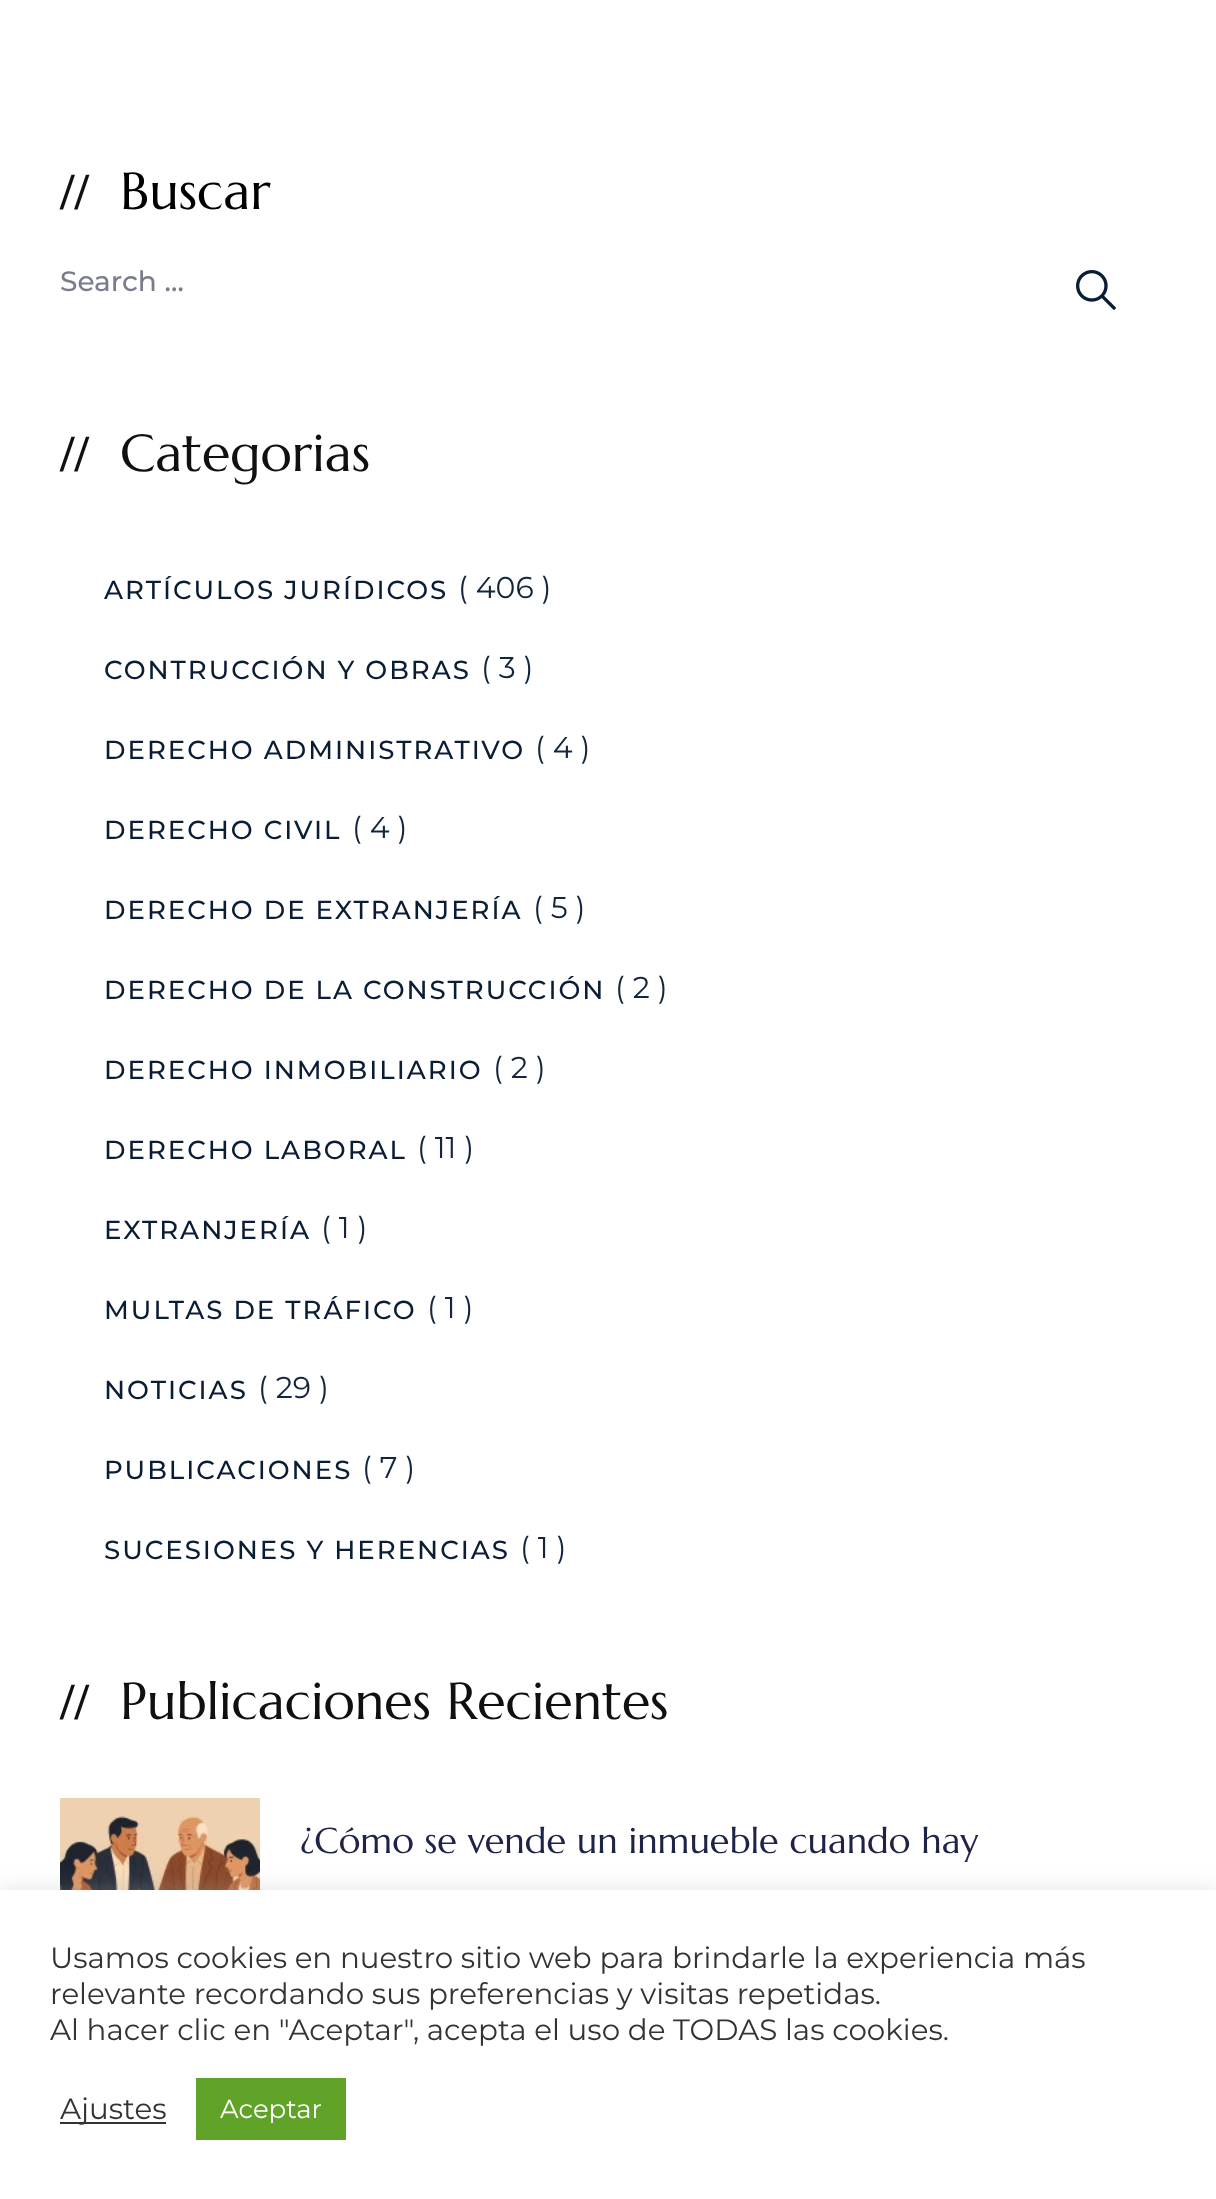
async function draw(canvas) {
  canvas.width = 1216;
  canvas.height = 2199;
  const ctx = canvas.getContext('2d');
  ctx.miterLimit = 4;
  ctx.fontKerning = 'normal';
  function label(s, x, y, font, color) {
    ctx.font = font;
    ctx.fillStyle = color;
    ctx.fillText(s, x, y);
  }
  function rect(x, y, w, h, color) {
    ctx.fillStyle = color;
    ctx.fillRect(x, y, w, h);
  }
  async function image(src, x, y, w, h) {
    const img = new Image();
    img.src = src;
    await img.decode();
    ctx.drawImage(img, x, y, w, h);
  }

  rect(0, 0, 1216, 2199, '#fff');
  label('//', 60, 209, 'bold 52px Liberation Serif', '#101010');
  label('Buscar', 120, 209, '52px Marcellus', '#000');
  label('Search …', 60, 291, '500 28px Montserrat', '#787c8b');
  await image('assets/img1.png', 1076, 270, 40, 40);
  label('//', 60, 471, 'bold 52px Liberation Serif', '#101010');
  label('Categorias', 120, 471, '52px Marcellus', '#101010');
  ctx.letterSpacing = '2px';
  label('ARTÍCULOS JURÍDICOS', 104, 599, '500 26px Montserrat', '#0a1d35');
  ctx.letterSpacing = '0px';
  label('( 406 )', 458, 598, '30px Montserrat', '#13263e');
  ctx.letterSpacing = '2px';
  label('CONTRUCCIÓN Y OBRAS', 104, 679, '500 26px Montserrat', '#0a1d35');
  ctx.letterSpacing = '0px';
  label('( 3 )', 481, 678, '30px Montserrat', '#13263e');
  ctx.letterSpacing = '2px';
  label('DERECHO ADMINISTRATIVO', 104, 759, '500 26px Montserrat', '#0a1d35');
  ctx.letterSpacing = '0px';
  label('( 4 )', 535, 758, '30px Montserrat', '#13263e');
  ctx.letterSpacing = '2px';
  label('DERECHO CIVIL', 104, 839, '500 26px Montserrat', '#0a1d35');
  ctx.letterSpacing = '0px';
  label('( 4 )', 352, 838, '30px Montserrat', '#13263e');
  ctx.letterSpacing = '2px';
  label('DERECHO DE EXTRANJERÍA', 104, 919, '500 26px Montserrat', '#0a1d35');
  ctx.letterSpacing = '0px';
  label('( 5 )', 533, 918, '30px Montserrat', '#13263e');
  ctx.letterSpacing = '2px';
  label('DERECHO DE LA CONSTRUCCIÓN', 104, 999, '500 26px Montserrat', '#0a1d35');
  ctx.letterSpacing = '0px';
  label('( 2 )', 615, 998, '30px Montserrat', '#13263e');
  ctx.letterSpacing = '2px';
  label('DERECHO INMOBILIARIO', 104, 1079, '500 26px Montserrat', '#0a1d35');
  ctx.letterSpacing = '0px';
  label('( 2 )', 493, 1078, '30px Montserrat', '#13263e');
  ctx.letterSpacing = '2px';
  label('DERECHO LABORAL', 104, 1159, '500 26px Montserrat', '#0a1d35');
  ctx.letterSpacing = '0px';
  label('( 11 )', 417, 1158, '30px Montserrat', '#13263e');
  ctx.letterSpacing = '2px';
  label('EXTRANJERÍA', 104, 1239, '500 26px Montserrat', '#0a1d35');
  ctx.letterSpacing = '0px';
  label('( 1 )', 321, 1238, '30px Montserrat', '#13263e');
  ctx.letterSpacing = '2px';
  label('MULTAS DE TRÁFICO', 104, 1319, '500 26px Montserrat', '#0a1d35');
  ctx.letterSpacing = '0px';
  label('( 1 )', 427, 1318, '30px Montserrat', '#13263e');
  ctx.letterSpacing = '2px';
  label('NOTICIAS', 104, 1399, '500 26px Montserrat', '#0a1d35');
  ctx.letterSpacing = '0px';
  label('( 29 )', 258, 1398, '30px Montserrat', '#13263e');
  ctx.letterSpacing = '2px';
  label('PUBLICACIONES', 104, 1479, '500 26px Montserrat', '#0a1d35');
  ctx.letterSpacing = '0px';
  label('( 7 )', 362, 1478, '30px Montserrat', '#13263e');
  ctx.letterSpacing = '2px';
  label('SUCESIONES Y HERENCIAS', 104, 1559, '500 26px Montserrat', '#0a1d35');
  ctx.letterSpacing = '0px';
  label('( 1 )', 520, 1558, '30px Montserrat', '#13263e');
  label('//', 60, 1719, 'bold 52px Liberation Serif', '#101010');
  label('Publicaciones Recientes', 120, 1719, '52px Marcellus', '#101010');
  await image('assets/img2.png', 60, 1798, 200, 92);
  label('¿Cómo se vende un inmueble cuando hay', 300, 1853, '36px Marcellus', '#1d2447');
  ctx.fillStyle = '#acabab4d';
  ctx.filter = 'blur(10px)';
  ctx.beginPath();
  ctx.rect(0, 1888, 1216, 310);
  ctx.fill();
  ctx.filter = 'none';
  rect(0, 1890, 1216, 309, '#fff');
  label('Usamos cookies en nuestro sitio web para brindarle la experiencia más', 50, 1968, '29.35px Montserrat', '#333');
  label('relevante recordando sus preferencias y visitas repetidas.', 50, 2004, '29.35px Montserrat', '#333');
  label('Al hacer clic en "Aceptar", acepta el uso de TODAS las cookies.', 50, 2040, '29.35px Montserrat', '#333');
  rect(60, 2122, 106, 2, '#333');
  label('Ajustes', 60, 2119, '29.35px Montserrat', '#333');
  rect(196, 2078, 150, 62, '#61a229');
  label('Aceptar', 220, 2118, '26px Montserrat', '#fff');
}

draw(document.querySelector('canvas'));
